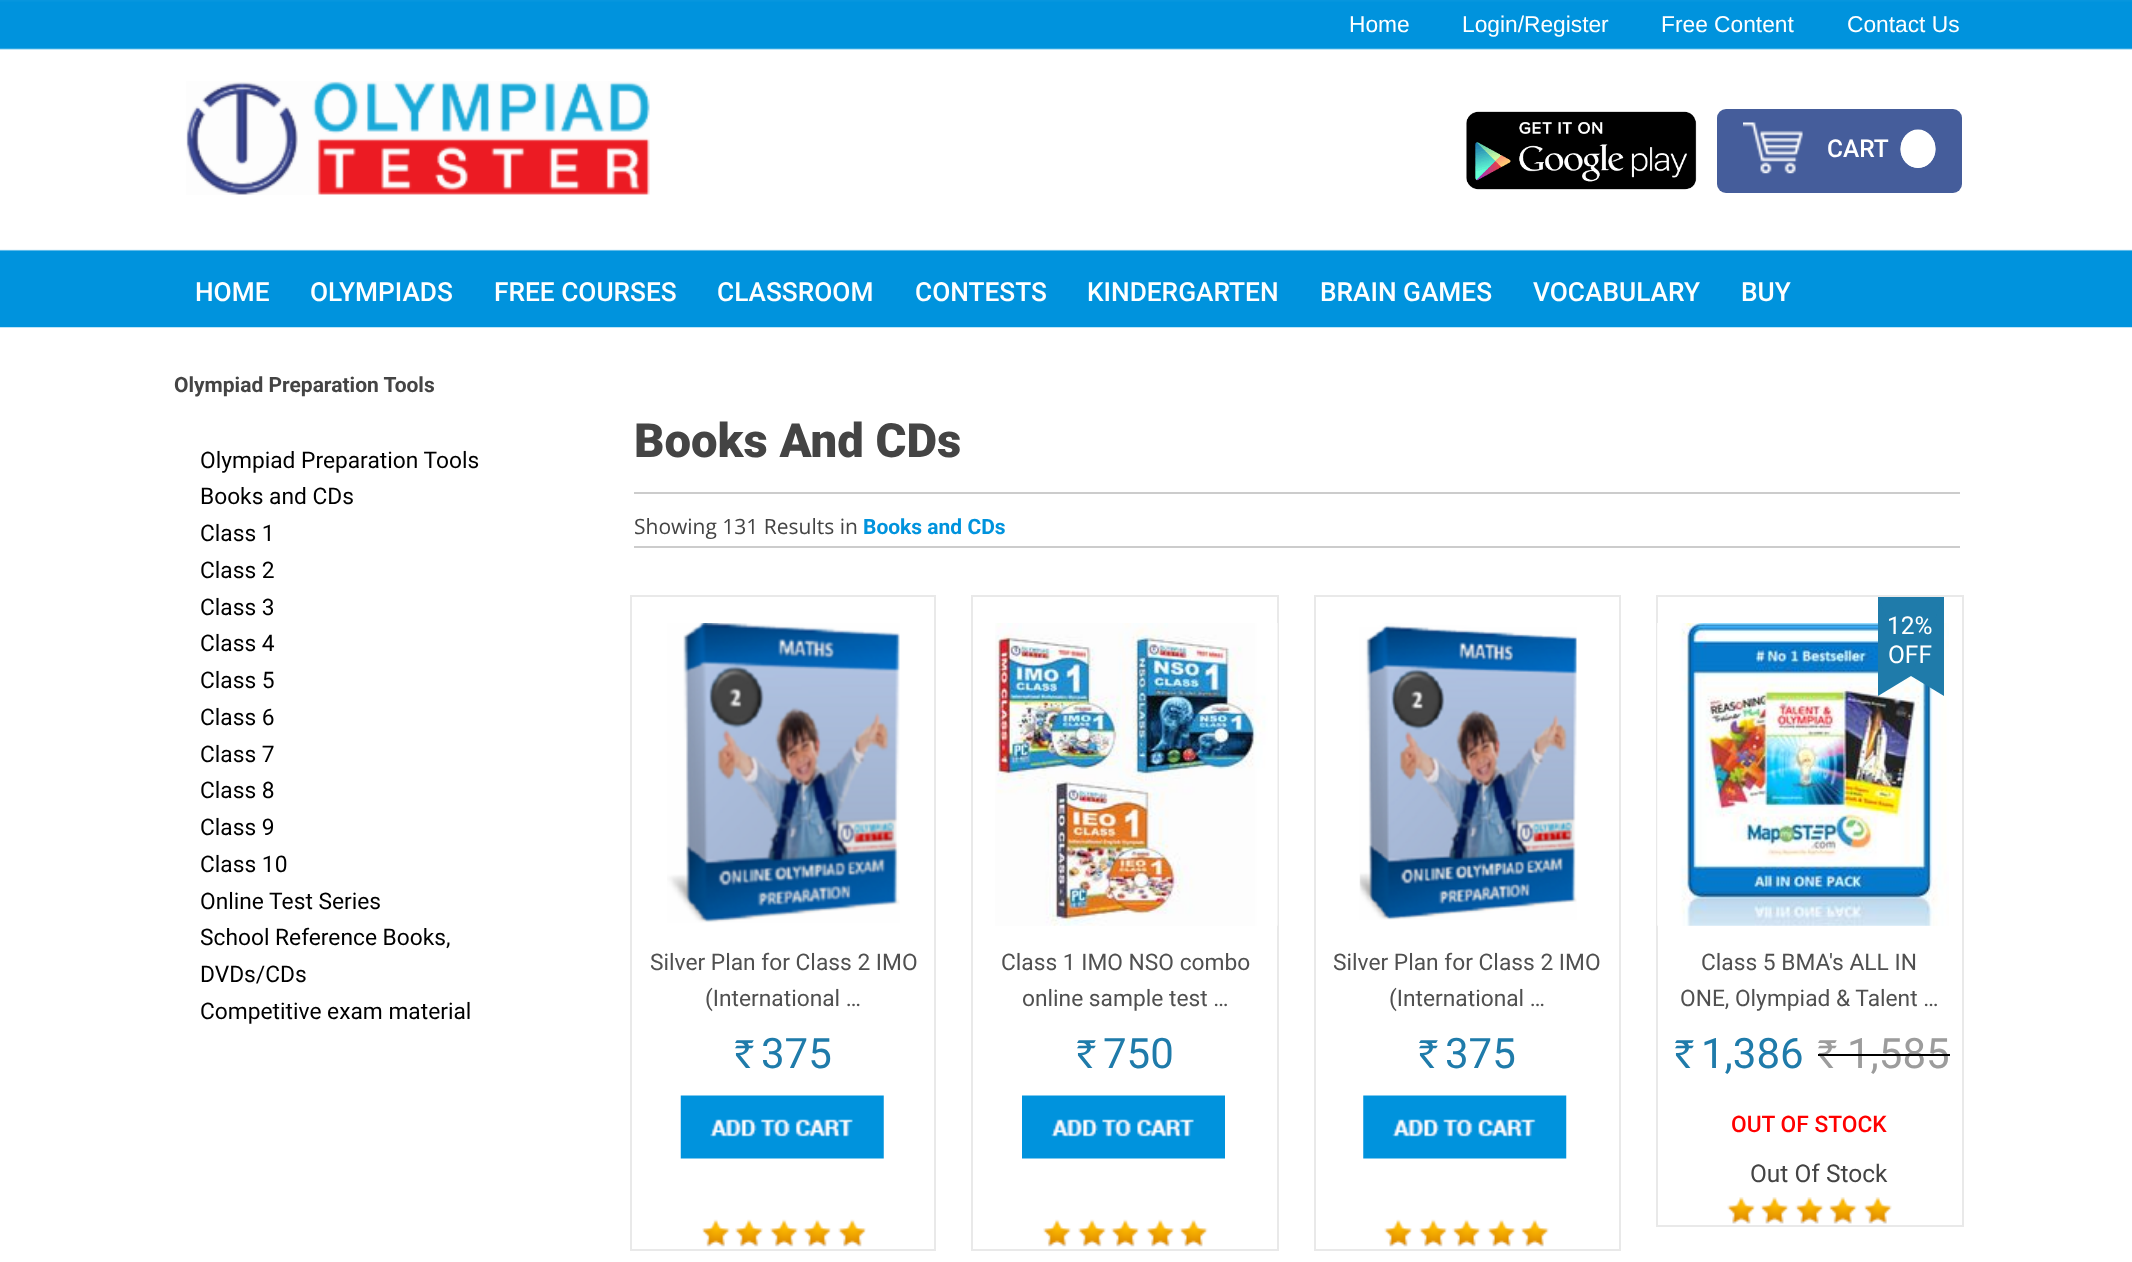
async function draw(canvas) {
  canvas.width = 2132;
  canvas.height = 1262;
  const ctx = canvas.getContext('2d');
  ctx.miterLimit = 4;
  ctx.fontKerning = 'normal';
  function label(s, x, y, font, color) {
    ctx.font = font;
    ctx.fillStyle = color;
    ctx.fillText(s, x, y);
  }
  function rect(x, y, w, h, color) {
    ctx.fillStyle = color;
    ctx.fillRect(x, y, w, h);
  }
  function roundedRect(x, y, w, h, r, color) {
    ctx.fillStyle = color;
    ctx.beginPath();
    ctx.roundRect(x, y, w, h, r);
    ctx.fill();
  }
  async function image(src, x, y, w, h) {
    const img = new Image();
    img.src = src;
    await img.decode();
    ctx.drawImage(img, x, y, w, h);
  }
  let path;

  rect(0, 0, 2132, 1262, '#fff');
  await image('assets/img1.png', 0, 0, 2132, 328);
  label('Home', 1349, 32, '22.75px Liberation Sans', '#fff');
  label('Login/Register', 1462, 32, '22.75px Liberation Sans', '#fff');
  label('Free Content', 1661, 32, '22.75px Liberation Sans', '#fff');
  label('Contact Us', 1847, 32, '22.75px Liberation Sans', '#fff');
  await image('assets/img2.png', 186, 81, 464, 114);
  label('HOME', 195, 301, '500 26.25px Roboto', '#fff');
  label('OLYMPIADS', 310, 301, '500 26.25px Roboto', '#fff');
  label('FREE COURSES', 494, 301, '500 26.25px Roboto', '#fff');
  label('CLASSROOM', 717, 301, '500 26.25px Roboto', '#fff');
  label('CONTESTS', 915, 301, '500 26.25px Roboto', '#fff');
  label('KINDERGARTEN', 1087, 301, '500 26.25px Roboto', '#fff');
  label('BRAIN GAMES', 1320, 301, '500 26.25px Roboto', '#fff');
  label('VOCABULARY', 1533, 301, '500 26.25px Roboto', '#fff');
  label('BUY', 1741, 301, '500 26.25px Roboto', '#fff');
  await image('assets/img3.png', 1466, 111, 231, 79);
  roundedRect(1717, 109, 245, 84, 9, '#455d9b');
  await image('assets/img4.png', 1743, 122, 60, 52);
  ctx.fillStyle = '#fff';
  ctx.beginPath();
  ctx.ellipse(1918, 149, 17.5, 19, 0, 0, 2 * Math.PI);
  ctx.fill();
  path = new Path2D('M1918 130.5C1927 130.5 1934.5 138.5 1934.5 149C1934.5 159 1927 167 1918 167C1909 167 1901.5 159 1901.5 149C1901.5 138.5 1909 130.5 1918 130.5Z');
  ctx.strokeStyle = '#fff';
  ctx.lineWidth = 1.8;
  ctx.stroke(path);
  label('CART', 1827, 157, '500 24.5px Roboto', '#fff');
  label('Olympiad Preparation Tools', 174, 392, 'bold 21px Roboto', '#444');
  label('Olympiad Preparation Tools', 200, 468, '22.75px Roboto', '#000');
  label('Books and CDs', 200, 504, '22.75px Roboto', '#000');
  label('Class 1', 200, 541, '22.75px Roboto', '#000');
  label('Class 2', 200, 578, '22.75px Roboto', '#000');
  label('Class 3', 200, 615, '22.75px Roboto', '#000');
  label('Class 4', 200, 651, '22.75px Roboto', '#000');
  label('Class 5', 200, 688, '22.75px Roboto', '#000');
  label('Class 6', 200, 725, '22.75px Roboto', '#000');
  label('Class 7', 200, 762, '22.75px Roboto', '#000');
  label('Class 8', 200, 798, '22.75px Roboto', '#000');
  label('Class 9', 200, 835, '22.75px Roboto', '#000');
  label('Class 10', 200, 872, '22.75px Roboto', '#000');
  label('Online Test Series', 200, 909, '22.75px Roboto', '#000');
  label('School Reference Books,', 200, 945, '22.75px Roboto', '#000');
  label('DVDs/CDs', 200, 982, '22.75px Roboto', '#000');
  label('Competitive exam material', 200, 1019, '22.75px Roboto', '#000');
  label('Books And CDs', 634, 457, '900 47.25px Roboto', '#444');
  rect(634, 492, 1326, 2, '#ccc');
  rect(634, 546, 1326, 2, '#ccc');
  label('Showing 131 Results in', 634, 534, '21px Open Sans', '#444');
  label('Books and CDs', 863, 534, 'bold 21px Roboto', '#0093dd');
  ctx.strokeStyle = '#e9e9e9';
  ctx.lineWidth = 2;
  ctx.strokeRect(631, 596, 304, 654);
  await image('assets/img5.png', 667, 623, 233, 300);
  label('Silver Plan for Class 2 IMO', 650, 970, '22.75px Roboto', '#505050');
  label('(International …', 705, 1006, '22.75px Roboto', '#505050');
  label('Rs.', 735, 1068, '38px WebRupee', '#1f7baa');
  label('375', 761, 1068, '42px Roboto', '#1f7baa');
  await image('assets/img6.png', 680, 1095, 204, 64);
  await image('assets/img7.png', 702, 1219, 28, 28);
  await image('assets/img8.png', 735, 1219, 28, 28);
  await image('assets/img9.png', 770, 1219, 28, 28);
  await image('assets/img10.png', 803, 1219, 28, 28);
  await image('assets/img11.png', 838, 1219, 28, 28);
  ctx.strokeRect(972, 596, 306, 654);
  await image('assets/img12.png', 995, 623, 283, 303);
  label('Class 1 IMO NSO combo', 1001, 970, '22.75px Roboto', '#505050');
  label('online sample test …', 1022, 1006, '22.75px Roboto', '#505050');
  label('Rs.', 1077, 1068, '38px WebRupee', '#1f7baa');
  label('750', 1103, 1068, '42px Roboto', '#1f7baa');
  await image('assets/img13.png', 1022, 1095, 203, 64);
  await image('assets/img14.png', 1043, 1219, 28, 28);
  await image('assets/img8.png', 1078, 1219, 28, 28);
  await image('assets/img11.png', 1111, 1219, 28, 28);
  await image('assets/img11.png', 1146, 1219, 28, 28);
  await image('assets/img15.png', 1179, 1219, 29, 28);
  ctx.strokeRect(1315, 596, 305, 654);
  await image('assets/img16.png', 1359, 623, 218, 297);
  label('Silver Plan for Class 2 IMO', 1333, 970, '22.75px Roboto', '#505050');
  label('(International …', 1389, 1006, '22.75px Roboto', '#505050');
  label('Rs.', 1419, 1068, '38px WebRupee', '#1f7baa');
  label('375', 1445, 1068, '42px Roboto', '#1f7baa');
  await image('assets/img17.png', 1363, 1095, 204, 64);
  await image('assets/img10.png', 1384, 1219, 28, 28);
  await image('assets/img11.png', 1419, 1219, 28, 28);
  await image('assets/img18.png', 1452, 1219, 29, 28);
  await image('assets/img18.png', 1487, 1219, 29, 28);
  await image('assets/img19.png', 1521, 1219, 28, 28);
  ctx.strokeRect(1657, 596, 306, 630);
  await image('assets/img25.png', 1657, 623, 292, 303);
  rect(1878, 597, 66, 79, '#1f7baa');
  path = new Path2D('M1944 597V696L1911 676Z');
  ctx.fill(path);
  path = new Path2D('M1878 696V597L1911 676Z');
  ctx.fill(path);
  label('12%', 1887, 634, '24.5px Roboto', '#fff');
  label('OFF', 1888, 663, '24.5px Roboto', '#fff');
  label('Rs.', 1675, 1068, '38px WebRupee', '#1f7baa');
  label('1,386', 1701, 1068, '42px Roboto', '#1f7baa');
  label('Rs.', 1818, 1068, '38px WebRupee', '#9c9c9c');
  label('1,585', 1847, 1068, '42px Roboto', '#9c9c9c');
  rect(1818, 1054, 132, 2, '#000');
  label('Class 5 BMA\'s ALL IN', 1701, 970, '22.75px Roboto', '#505050');
  label('ONE, Olympiad & Talent …', 1680, 1006, '22.75px Roboto', '#505050');
  label('OUT OF STOCK', 1731, 1132, '500 22.75px Roboto', '#f00');
  label('Out Of Stock', 1750, 1182, '24.5px Roboto', '#444');
  await image('assets/img20.png', 1727, 1197, 28, 27);
  await image('assets/img21.png', 1760, 1197, 29, 27);
  await image('assets/img22.png', 1795, 1197, 29, 27);
  await image('assets/img23.png', 1829, 1197, 28, 27);
  await image('assets/img24.png', 1864, 1197, 28, 27);
}

draw(document.querySelector('canvas'));
